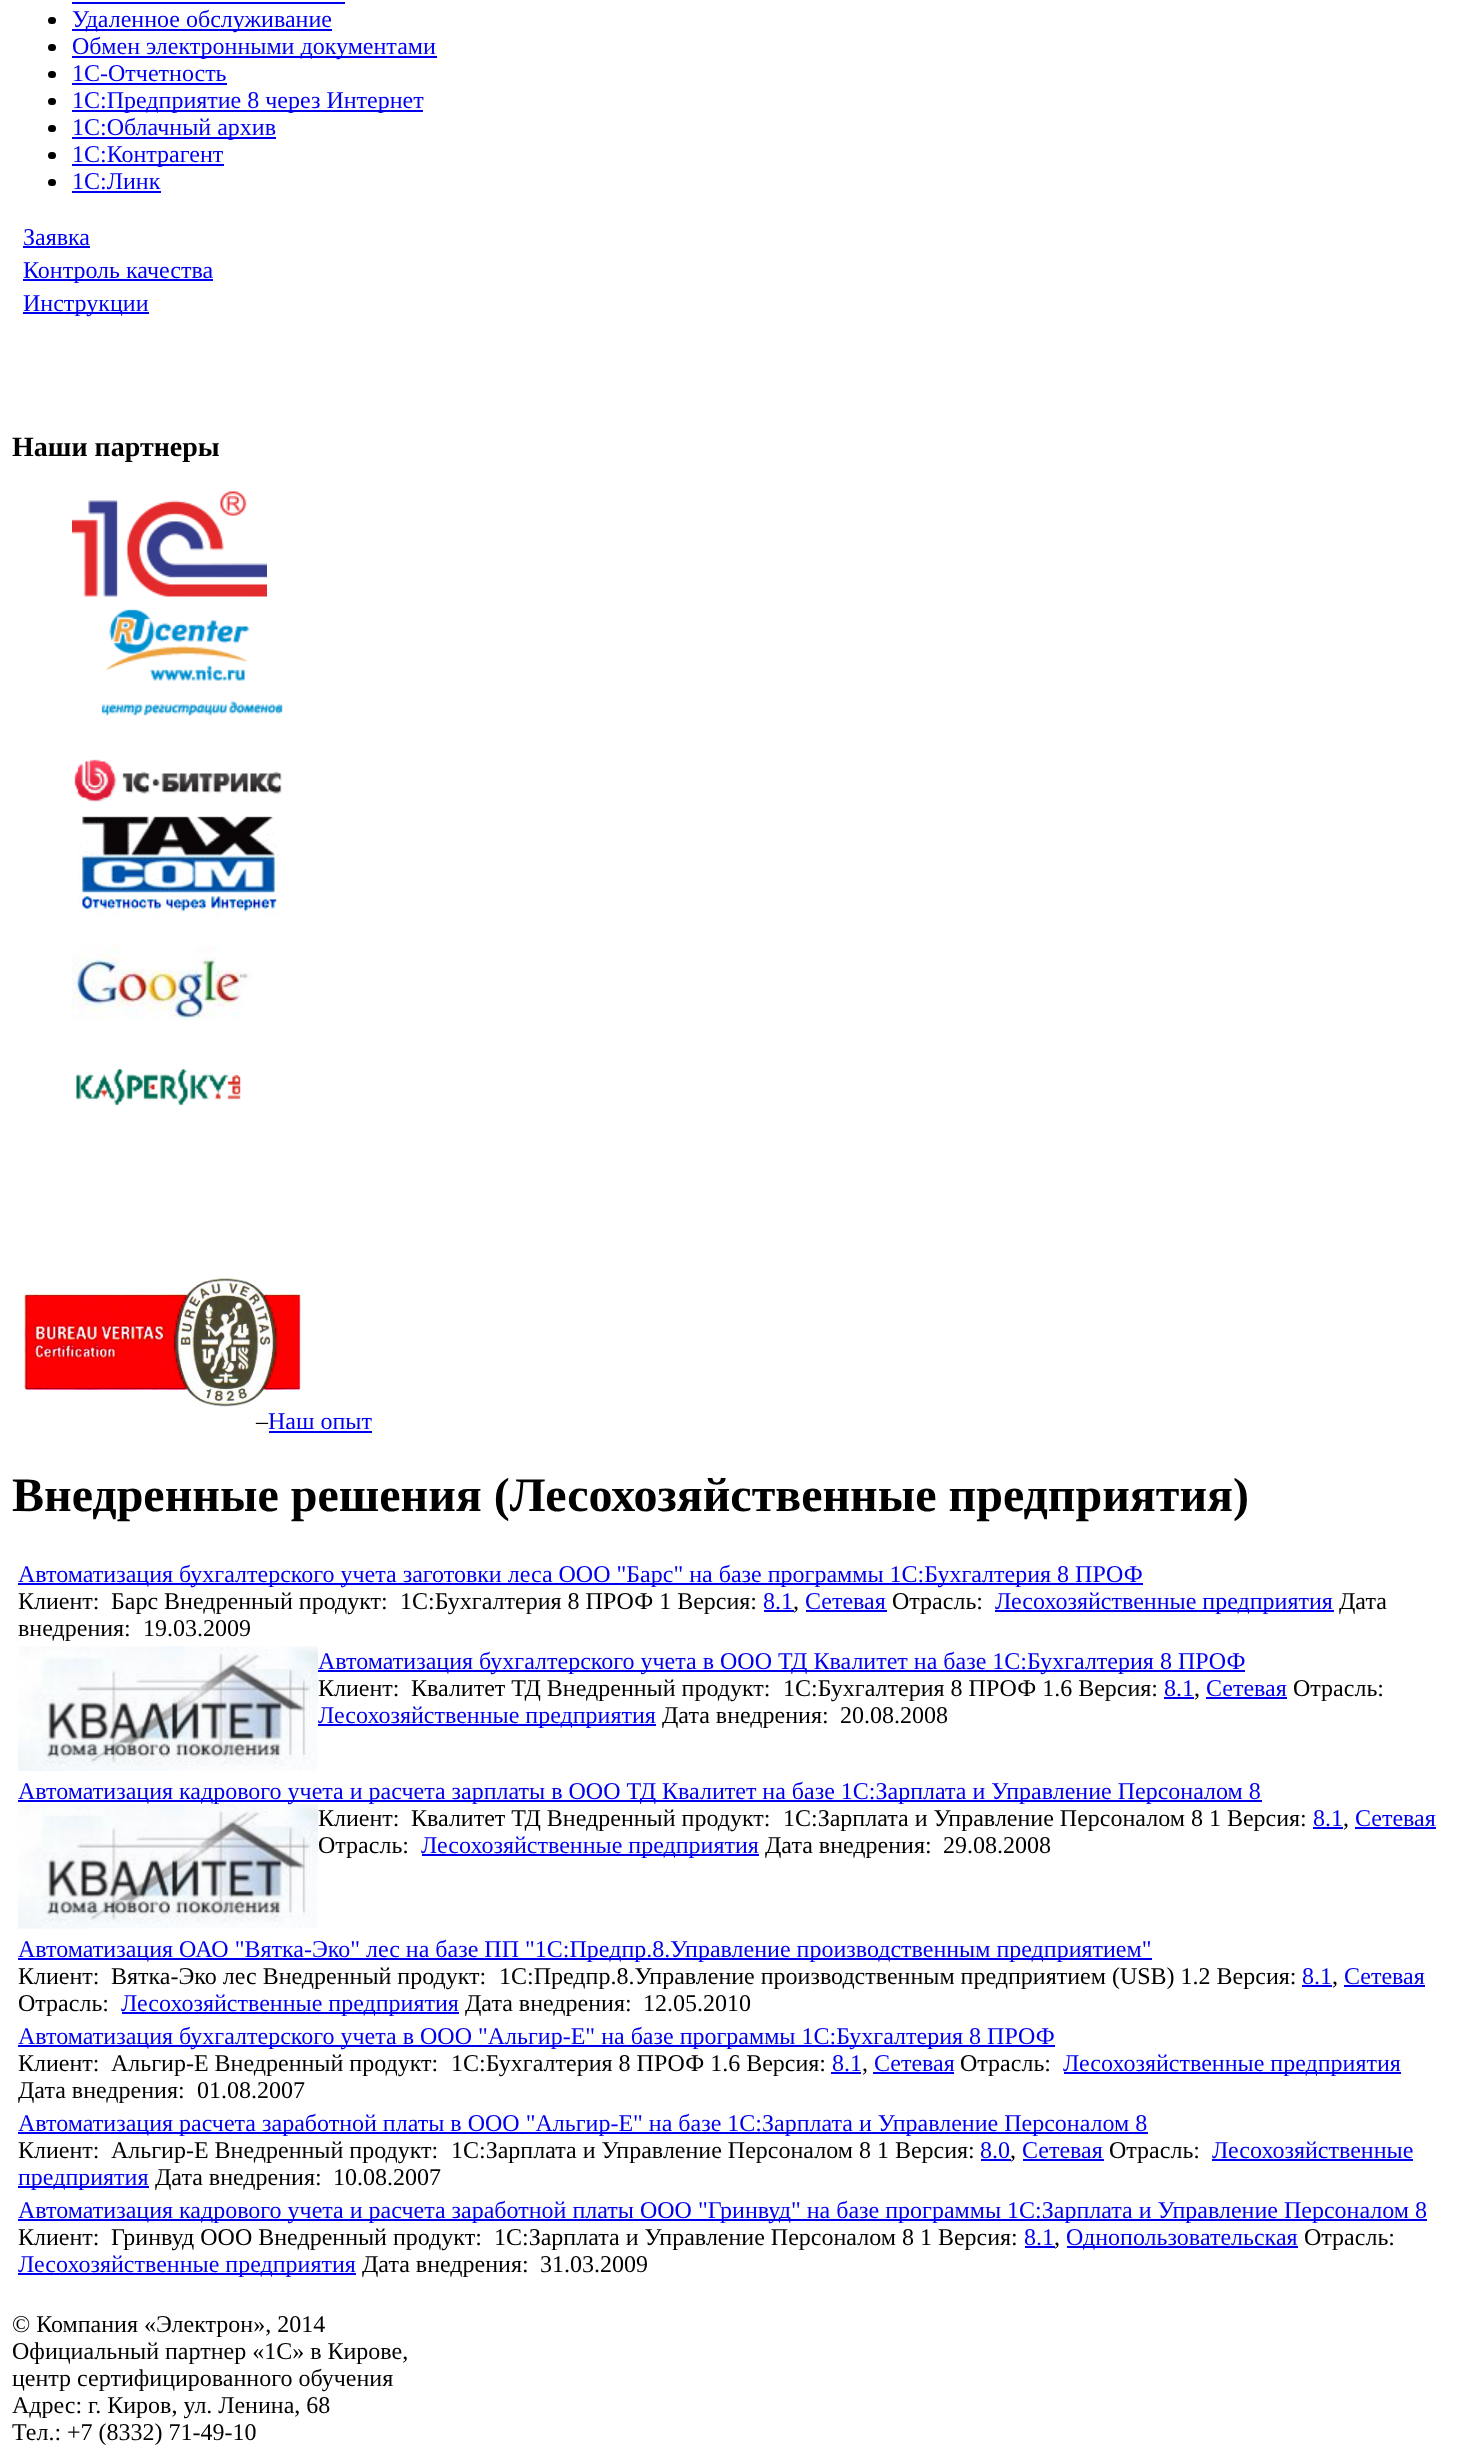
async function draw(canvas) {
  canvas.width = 1472;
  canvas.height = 2458;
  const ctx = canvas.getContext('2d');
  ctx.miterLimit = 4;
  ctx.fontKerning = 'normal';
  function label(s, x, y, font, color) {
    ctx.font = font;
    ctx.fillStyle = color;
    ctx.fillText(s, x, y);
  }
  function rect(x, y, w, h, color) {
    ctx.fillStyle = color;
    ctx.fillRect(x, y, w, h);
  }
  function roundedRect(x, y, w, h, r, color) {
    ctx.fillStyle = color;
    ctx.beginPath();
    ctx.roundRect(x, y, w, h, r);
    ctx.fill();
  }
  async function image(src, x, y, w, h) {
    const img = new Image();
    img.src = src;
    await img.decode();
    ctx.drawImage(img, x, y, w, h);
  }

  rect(0, 0, 1472, 2458, '#fff');
  rect(72, 2, 273, 2, '#00e');
  roundedRect(48, 17, 8, 7, 3.5, '#000');
  rect(72, 29, 260, 2, '#00e');
  label('Удаленное обслуживание', 72, 27, '24px Liberation Serif', '#00e');
  roundedRect(48, 44, 8, 7, 3.5, '#000');
  rect(72, 56, 365, 2, '#00e');
  label('Обмен электронными документами', 72, 54, '24px Liberation Serif', '#00e');
  roundedRect(48, 71, 8, 7, 3.5, '#000');
  label('1С-Отчетность', 72, 81, '24px Liberation Serif', '#00e');
  rect(72, 83, 155, 2, '#00e');
  roundedRect(48, 98, 8, 7, 3.5, '#000');
  rect(72, 110, 351, 2, '#00e');
  label('1С:Предприятие 8 через Интернет', 72, 108, '24px Liberation Serif', '#00e');
  roundedRect(48, 125, 8, 7, 3.5, '#000');
  rect(72, 137, 204, 2, '#00e');
  label('1С:Облачный архив', 72, 135, '24px Liberation Serif', '#00e');
  roundedRect(48, 152, 8, 7, 3.5, '#000');
  rect(72, 164, 152, 2, '#00e');
  label('1С:Контрагент', 72, 162, '24px Liberation Serif', '#00e');
  roundedRect(48, 179, 8, 7, 3.5, '#000');
  label('1С:Линк', 72, 189, '24px Liberation Serif', '#00e');
  rect(72, 191, 89, 2, '#00e');
  label('Заявка', 23, 245, '24px Liberation Serif', '#00e');
  rect(23, 246, 67, 2, '#00e');
  rect(23, 279, 190, 2, '#00e');
  label('Контроль качества', 23, 278, '24px Liberation Serif', '#00e');
  rect(23, 312, 126, 2, '#00e');
  label('Инструкции', 23, 311, '24px Liberation Serif', '#00e');
  label('Наши партнеры', 12, 456, 'bold 28px Liberation Serif', '#000');
  await image('assets/img1.png', 72, 491, 195, 106);
  await image('assets/img2.png', 101, 609, 182, 107);
  await image('assets/img3.png', 74, 759, 208, 43);
  await image('assets/img4.png', 78, 816, 204, 100);
  await image('assets/img5.png', 72, 945, 180, 75);
  await image('assets/img6.png', 76, 1069, 165, 37);
  await image('assets/img7.png', 24, 1278, 277, 129);
  label('–', 256, 1429, 'italic 24px Liberation Serif', '#000');
  label('Наш опыт', 268, 1429, '24px Liberation Serif', '#00e');
  rect(269, 1431, 103, 2, '#00e');
  label('Внедренные решения (Лесохозяйственные предприятия)', 12, 1511, 'bold 48px Liberation Serif', '#000');
  rect(18, 1583, 1125, 2, '#00e');
  label('Автоматизация бухгалтерского учета заготовки леса ООО "Барс" на базе программы 1С:Бухгалтерия 8 ПРОФ', 18, 1582, '24px Liberation Serif', '#00e');
  label('Клиент:', 18, 1609, '24px Liberation Serif', '#000');
  label('Барс Внедренный продукт:', 111, 1609, '24px Liberation Serif', '#000');
  label('1С:Бухгалтерия 8 ПРОФ 1 Версия:', 400, 1609, '24px Liberation Serif', '#000');
  label('8.1', 763, 1609, '24px Liberation Serif', '#00e');
  label(',', 793, 1609, '24px Liberation Serif', '#000');
  rect(764, 1610, 30, 2, '#00e');
  rect(806, 1610, 81, 2, '#00e');
  label('Сетевая', 805, 1609, '24px Liberation Serif', '#00e');
  label('Отрасль:', 892, 1609, '24px Liberation Serif', '#000');
  rect(995, 1610, 339, 2, '#00e');
  label('Лесохозяйственные предприятия', 995, 1609, '24px Liberation Serif', '#00e');
  label('Дата', 1339, 1609, '24px Liberation Serif', '#000');
  label('внедрения:', 18, 1636, '24px Liberation Serif', '#000');
  label('19.03.2009', 143, 1636, '24px Liberation Serif', '#000');
  await image('assets/img8.png', 18, 1646, 300, 125);
  rect(318, 1670, 927, 2, '#00e');
  label('Автоматизация бухгалтерского учета в ООО ТД Квалитет на базе 1С:Бухгалтерия 8 ПРОФ', 318, 1669, '24px Liberation Serif', '#00e');
  label('Клиент:', 318, 1696, '24px Liberation Serif', '#000');
  label('Квалитет ТД Внедренный продукт:', 411, 1696, '24px Liberation Serif', '#000');
  label('1С:Бухгалтерия 8 ПРОФ 1.6 Версия:', 783, 1696, '24px Liberation Serif', '#000');
  label('8.1', 1164, 1696, '24px Liberation Serif', '#00e');
  label(',', 1194, 1696, '24px Liberation Serif', '#000');
  rect(1164, 1697, 30, 2, '#00e');
  rect(1206, 1697, 81, 2, '#00e');
  label('Сетевая', 1206, 1696, '24px Liberation Serif', '#00e');
  label('Отрасль:', 1293, 1696, '24px Liberation Serif', '#000');
  rect(318, 1724, 338, 2, '#00e');
  label('Лесохозяйственные предприятия', 318, 1723, '24px Liberation Serif', '#00e');
  label('Дата внедрения:', 662, 1723, '24px Liberation Serif', '#000');
  label('20.08.2008', 840, 1723, '24px Liberation Serif', '#000');
  rect(18, 1800, 1244, 2, '#00e');
  await image('assets/img9.png', 18, 1804, 300, 125);
  label('Автоматизация кадрового учета и расчета зарплаты в ООО ТД Квалитет на базе 1С:Зарплата и Управление Персоналом 8', 18, 1799, '24px Liberation Serif', '#00e');
  label('Клиент:', 318, 1826, '24px Liberation Serif', '#000');
  label('Квалитет ТД Внедренный продукт:', 411, 1826, '24px Liberation Serif', '#000');
  label('1С:Зарплата и Управление Персоналом 8 1 Версия:', 783, 1826, '24px Liberation Serif', '#000');
  label('8.1', 1313, 1826, '24px Liberation Serif', '#00e');
  label(',', 1343, 1826, '24px Liberation Serif', '#000');
  rect(1313, 1827, 30, 2, '#00e');
  rect(1355, 1827, 81, 2, '#00e');
  label('Сетевая', 1355, 1826, '24px Liberation Serif', '#00e');
  label('Отрасль:', 318, 1853, '24px Liberation Serif', '#000');
  rect(422, 1854, 337, 2, '#00e');
  label('Лесохозяйственные предприятия', 421, 1853, '24px Liberation Serif', '#00e');
  label('Дата внедрения:', 765, 1853, '24px Liberation Serif', '#000');
  label('29.08.2008', 943, 1853, '24px Liberation Serif', '#000');
  rect(18, 1958, 1134, 2, '#00e');
  label('Автоматизация ОАО "Вятка-Эко" лес на базе ПП "1С:Предпр.8.Управление производственным предприятием"', 18, 1957, '24px Liberation Serif', '#00e');
  label('Клиент:', 18, 1984, '24px Liberation Serif', '#000');
  label('Вятка-Эко лес Внедренный продукт:', 111, 1984, '24px Liberation Serif', '#000');
  label('1С:Предпр.8.Управление производственным предприятием (USB) 1.2 Версия:', 499, 1984, '24px Liberation Serif', '#000');
  label('8.1', 1302, 1984, '24px Liberation Serif', '#00e');
  label(',', 1332, 1984, '24px Liberation Serif', '#000');
  rect(1302, 1985, 30, 2, '#00e');
  rect(1344, 1985, 81, 2, '#00e');
  label('Сетевая', 1344, 1984, '24px Liberation Serif', '#00e');
  label('Отрасль:', 18, 2011, '24px Liberation Serif', '#000');
  rect(122, 2012, 337, 2, '#00e');
  label('Лесохозяйственные предприятия', 121, 2011, '24px Liberation Serif', '#00e');
  label('Дата внедрения:', 465, 2011, '24px Liberation Serif', '#000');
  label('12.05.2010', 643, 2011, '24px Liberation Serif', '#000');
  rect(18, 2045, 1037, 2, '#00e');
  label('Автоматизация бухгалтерского учета в ООО "Альгир-Е" на базе программы 1С:Бухгалтерия 8 ПРОФ', 18, 2044, '24px Liberation Serif', '#00e');
  label('Клиент:', 18, 2071, '24px Liberation Serif', '#000');
  label('Альгир-Е Внедренный продукт:', 111, 2071, '24px Liberation Serif', '#000');
  label('1С:Бухгалтерия 8 ПРОФ 1.6 Версия:', 451, 2071, '24px Liberation Serif', '#000');
  label('8.1', 832, 2071, '24px Liberation Serif', '#00e');
  label(',', 862, 2071, '24px Liberation Serif', '#000');
  rect(831, 2072, 30, 2, '#00e');
  rect(873, 2072, 81, 2, '#00e');
  label('Сетевая', 874, 2071, '24px Liberation Serif', '#00e');
  label('Отрасль:', 960, 2071, '24px Liberation Serif', '#000');
  rect(1064, 2072, 337, 2, '#00e');
  label('Лесохозяйственные предприятия', 1063, 2071, '24px Liberation Serif', '#00e');
  label('Дата внедрения:', 18, 2098, '24px Liberation Serif', '#000');
  label('01.08.2007', 197, 2098, '24px Liberation Serif', '#000');
  rect(18, 2132, 1130, 2, '#00e');
  label('Автоматизация расчета заработной платы в ООО "Альгир-Е" на базе 1С:Зарплата и Управление Персоналом 8', 18, 2131, '24px Liberation Serif', '#00e');
  label('Клиент:', 18, 2158, '24px Liberation Serif', '#000');
  label('Альгир-Е Внедренный продукт:', 111, 2158, '24px Liberation Serif', '#000');
  label('1С:Зарплата и Управление Персоналом 8 1 Версия:', 451, 2158, '24px Liberation Serif', '#000');
  label('8.0', 980, 2158, '24px Liberation Serif', '#00e');
  label(',', 1010, 2158, '24px Liberation Serif', '#000');
  rect(981, 2159, 30, 2, '#00e');
  rect(1023, 2159, 81, 2, '#00e');
  label('Сетевая', 1022, 2158, '24px Liberation Serif', '#00e');
  label('Отрасль:', 1109, 2158, '24px Liberation Serif', '#000');
  label('Лесохозяйственные', 1212, 2158, '24px Liberation Serif', '#00e');
  rect(1212, 2159, 201, 2, '#00e');
  rect(18, 2186, 131, 2, '#00e');
  label('предприятия', 18, 2185, '24px Liberation Serif', '#00e');
  label('Дата внедрения:', 155, 2185, '24px Liberation Serif', '#000');
  label('10.08.2007', 333, 2185, '24px Liberation Serif', '#000');
  rect(18, 2219, 1409, 2, '#00e');
  label('Автоматизация кадрового учета и расчета заработной платы ООО "Гринвуд" на базе программы 1С:Зарплата и Управление Персоналом 8', 18, 2218, '24px Liberation Serif', '#00e');
  label('Клиент:', 18, 2245, '24px Liberation Serif', '#000');
  label('Гринвуд ООО Внедренный продукт:', 111, 2245, '24px Liberation Serif', '#000');
  label('1С:Зарплата и Управление Персоналом 8 1 Версия:', 494, 2245, '24px Liberation Serif', '#000');
  label('8.1', 1024, 2245, '24px Liberation Serif', '#00e');
  label(',', 1054, 2245, '24px Liberation Serif', '#000');
  rect(1025, 2246, 30, 2, '#00e');
  rect(1067, 2246, 231, 2, '#00e');
  label('Однопользовательская', 1066, 2245, '24px Liberation Serif', '#00e');
  label('Отрасль:', 1304, 2245, '24px Liberation Serif', '#000');
  rect(18, 2273, 338, 2, '#00e');
  label('Лесохозяйственные предприятия', 18, 2272, '24px Liberation Serif', '#00e');
  label('Дата внедрения:', 362, 2272, '24px Liberation Serif', '#000');
  label('31.03.2009', 540, 2272, '24px Liberation Serif', '#000');
  label('© Компания «Электрон», 2014', 12, 2332, '24px Liberation Serif', '#000');
  label('Официальный партнер «1C» в Кирове,', 12, 2359, '24px Liberation Serif', '#000');
  label('центр сертифицированного обучения', 12, 2386, '24px Liberation Serif', '#000');
  label('Адрес: г. Киров, ул. Ленина, 68', 12, 2413, '24px Liberation Serif', '#000');
  label('Тел.: +7 (8332) 71-49-10', 12, 2440, '24px Liberation Serif', '#000');
}

draw(document.querySelector('canvas'));
